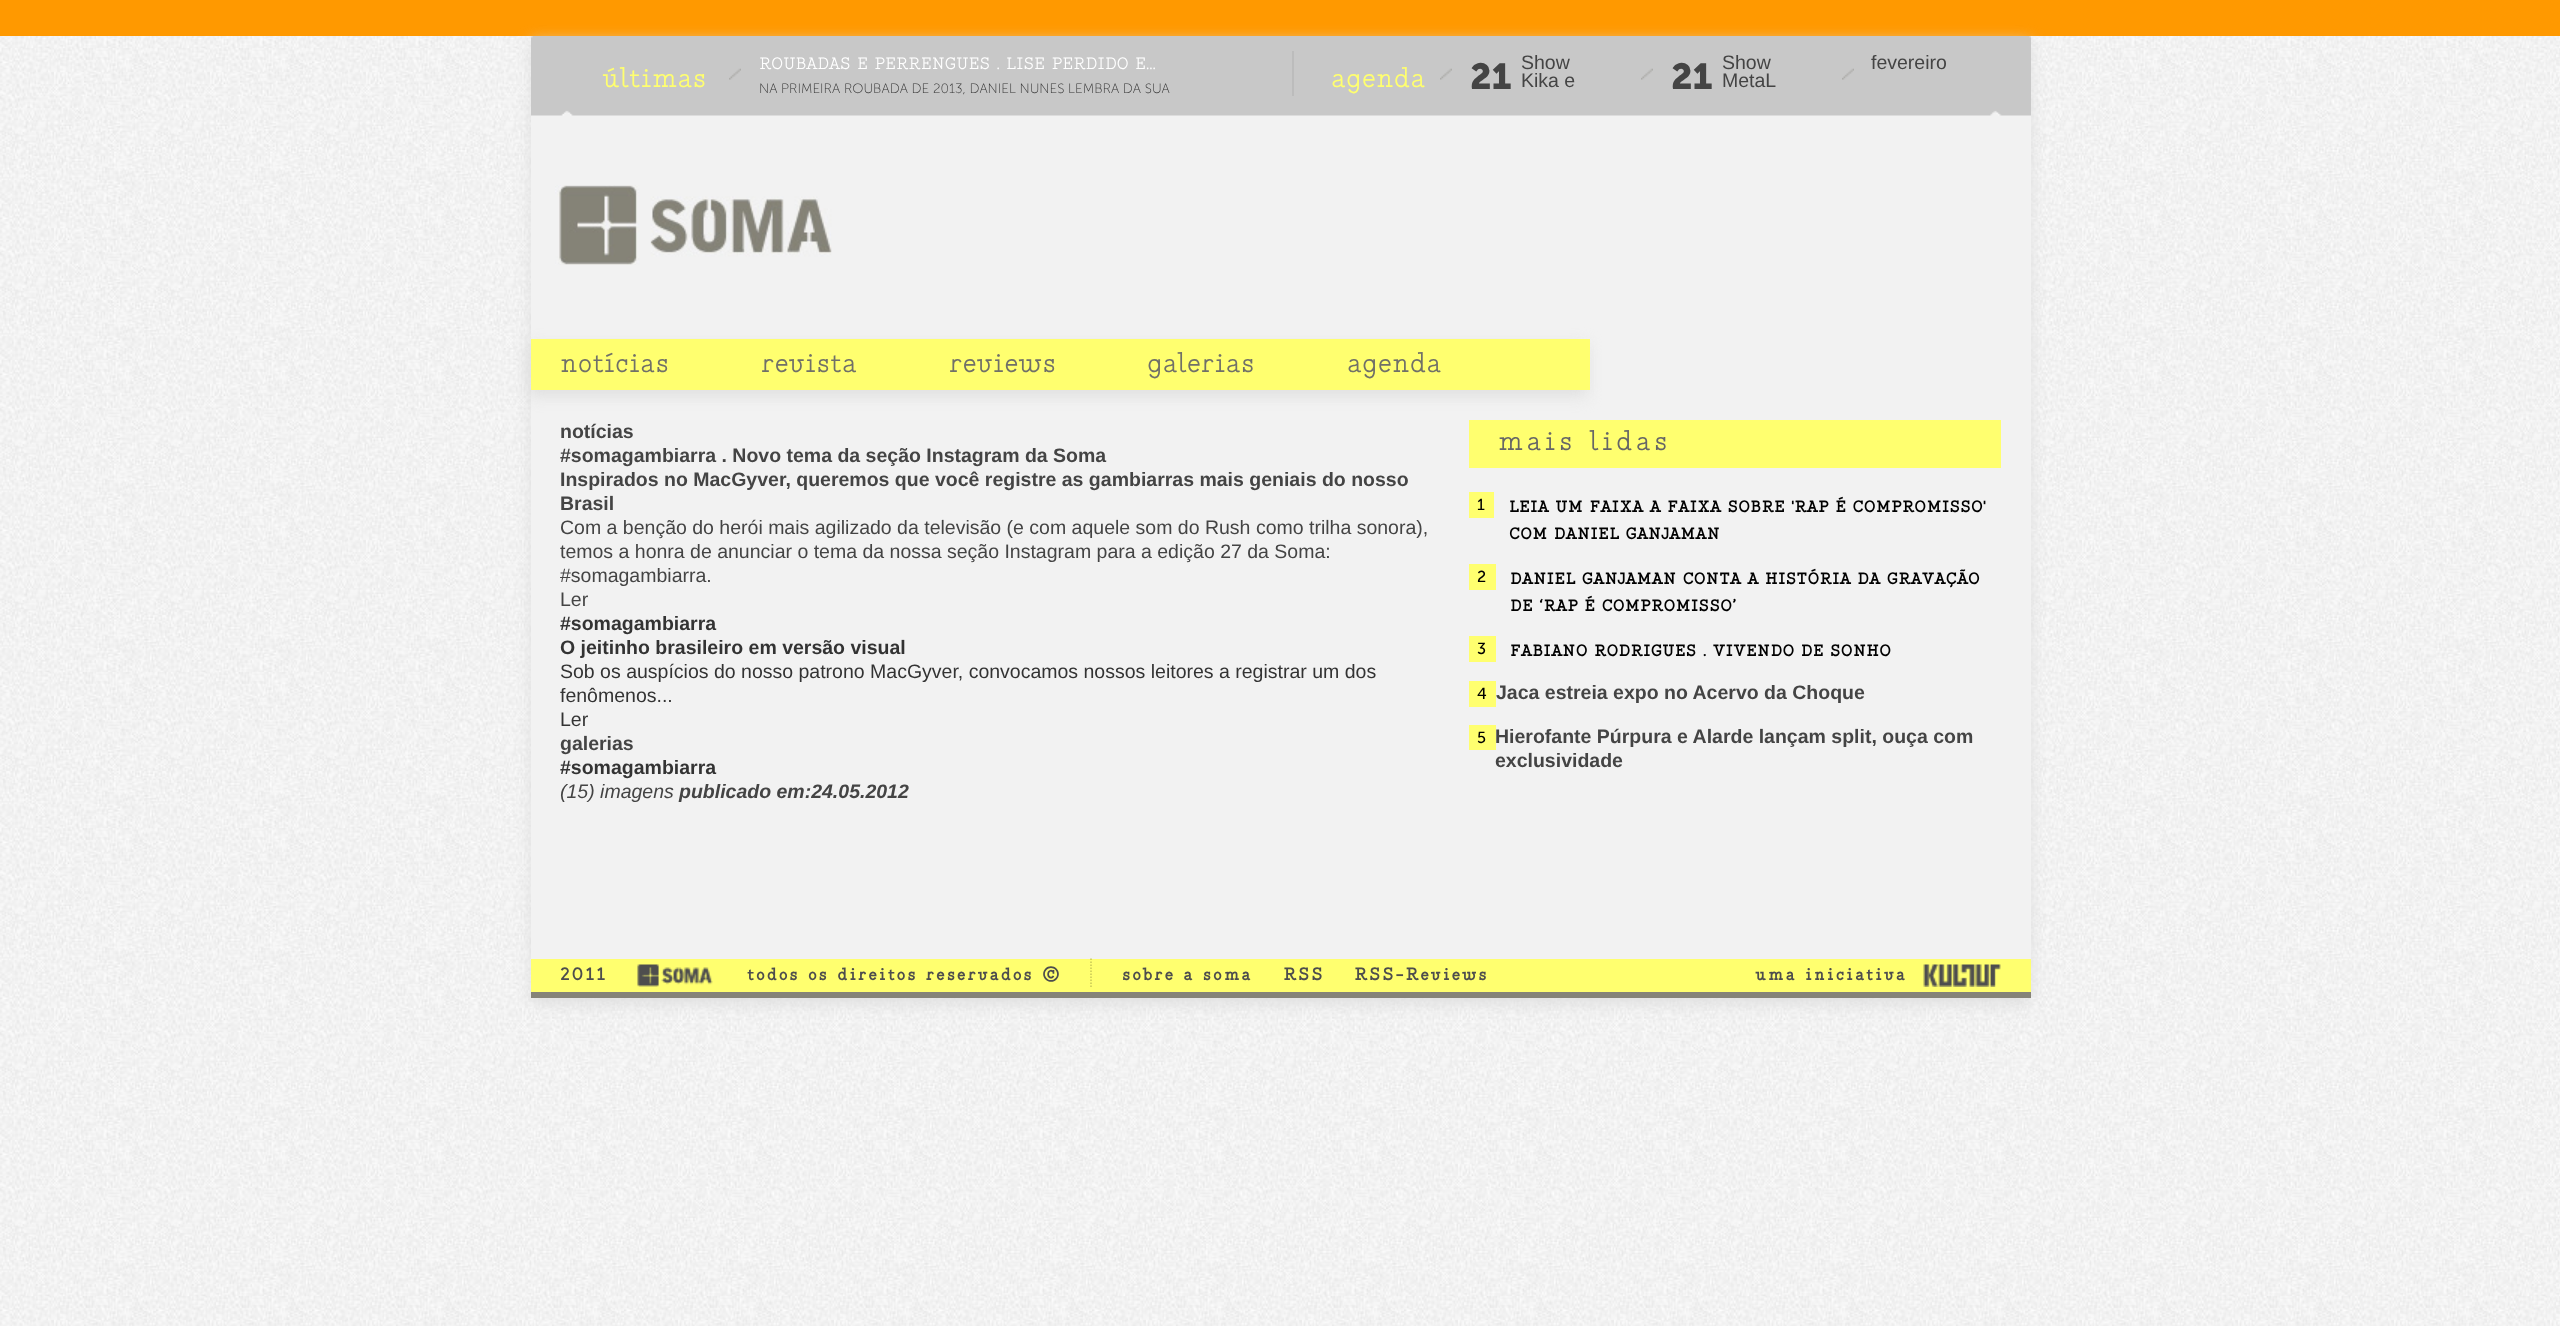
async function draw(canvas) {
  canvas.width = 2560;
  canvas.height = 1326;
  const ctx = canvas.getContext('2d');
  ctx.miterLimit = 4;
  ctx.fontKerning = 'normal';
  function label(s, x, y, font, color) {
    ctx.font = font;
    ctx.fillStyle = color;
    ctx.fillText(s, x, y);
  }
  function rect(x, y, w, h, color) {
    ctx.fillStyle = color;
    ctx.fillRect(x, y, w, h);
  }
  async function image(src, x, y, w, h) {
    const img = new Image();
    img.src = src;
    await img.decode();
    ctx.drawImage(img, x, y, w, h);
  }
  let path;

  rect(0, 0, 2560, 1326, '#fff');
  await image('assets/img1.png', 0, 36, 2560, 1290);
  rect(0, 0, 2560, 36, '#f90');
  ctx.fillStyle = '#dfdfdf';
  ctx.filter = 'blur(7.5px)';
  ctx.beginPath();
  ctx.rect(531, 42, 1500, 962);
  ctx.fill();
  ctx.filter = 'none';
  rect(531, 112, 1500, 847, '#f2f2f2');
  await image('assets/img2.png', 531, 36, 1500, 80);
  label('últimas', 602, 87, '31.5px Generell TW', '#ffff6f');
  await image('assets/img3.png', 729, 68, 12, 12);
  rect(1292, 51, 2, 45, '#bcbcbc');
  label('ROUBADAS E PERRENGUES . LISE PERDIDO E...', 759, 69, '18px Generell TW', '#fff');
  label('NA PRIMEIRA ROUBADA DE 2013, DANIEL NUNES LEMBRA DA SUA', 759, 93, '200 13.5px Museo Sans', '#333');
  label('agenda', 1331, 87, '31.5px Generell TW', '#ffff6f');
  await image('assets/img4.png', 1440, 68, 12, 12);
  label('21', 1470, 89, 'bold 36px Museo Sans', '#444');
  label('Show', 1521, 69, '19.5px Liberation Sans', '#444');
  label('Kika e', 1521, 87, '19.5px Liberation Sans', '#444');
  await image('assets/img4.png', 1641, 68, 12, 12);
  label('21', 1671, 89, 'bold 36px Museo Sans', '#444');
  label('Show', 1722, 69, '19.5px Liberation Sans', '#444');
  label('MetaL', 1722, 87, '19.5px Liberation Sans', '#444');
  await image('assets/img3.png', 1842, 68, 12, 12);
  label('fevereiro', 1871, 69, '19.5px Liberation Sans', '#444');
  await image('assets/img5.png', 555, 185, 277, 80);
  ctx.fillStyle = '#dfdfdf';
  ctx.filter = 'blur(7.5px)';
  ctx.beginPath();
  ctx.rect(528, 345, 1059, 51);
  ctx.fill();
  ctx.filter = 'none';
  rect(531, 339, 1059, 51, '#ffff6f');
  label('notícias', 560, 372, '31.5px Generell TW', '#707068');
  label('revista', 761, 372, '31.5px Generell TW', '#707068');
  label('reviews', 949, 372, '31.5px Generell TW', '#707068');
  label('galerias', 1147, 372, '31.5px Generell TW', '#707068');
  label('agenda', 1347, 372, '31.5px Generell TW', '#707068');
  label('notícias', 560, 438, 'bold 19.5px Liberation Sans', '#444');
  label('#somagambiarra . Novo tema da seção Instagram da Soma', 560, 462, 'bold 19.5px Liberation Sans', '#444');
  label('Inspirados no MacGyver, queremos que você registre as gambiarras mais geniais do nosso', 560, 486, 'bold 19.5px Liberation Sans', '#444');
  label('Brasil', 560, 510, 'bold 19.5px Liberation Sans', '#444');
  label('Com a benção do herói mais agilizado da televisão (e com aquele som do Rush como trilha sonora),', 560, 534, '19.5px Liberation Sans', '#444');
  label('temos a honra de anunciar o tema da nossa seção Instagram para a edição 27 da Soma:', 560, 558, '19.5px Liberation Sans', '#444');
  label('#somagambiarra.', 560, 582, '19.5px Liberation Sans', '#444');
  label('Ler', 560, 606, '19.5px Liberation Sans', '#444');
  label('#somagambiarra', 560, 630, 'bold 19.5px Liberation Sans', '#333');
  label('O jeitinho brasileiro em versão visual', 560, 654, 'bold 19.5px Liberation Sans', '#333');
  label('Sob os auspícios do nosso patrono MacGyver, convocamos nossos leitores a registrar um dos', 560, 678, '19.5px Liberation Sans', '#333');
  label('fenômenos...', 560, 702, '19.5px Liberation Sans', '#333');
  label('Ler', 560, 726, '19.5px Liberation Sans', '#333');
  label('galerias', 560, 750, 'bold 19.5px Liberation Sans', '#444');
  label('#somagambiarra', 560, 774, 'bold 19.5px Liberation Sans', '#333');
  label('(15) imagens', 560, 798, 'italic 19.5px Liberation Sans', '#444');
  label('publicado em:24.05.2012', 679, 798, 'italic bold 19.5px Liberation Sans', '#444');
  rect(1469, 420, 532, 48, '#ffff6f');
  ctx.letterSpacing = '3px';
  label('mais lidas', 1498, 450, '31.5px Generell TW', '#666');
  rect(1469, 492, 25, 26, '#ffff6f');
  ctx.letterSpacing = '0px';
  label('1', 1477, 510, '16px Museo Sans', '#000');
  label('LEIA UM FAIXA A FAIXA SOBRE \'RAP É COMPROMISSO\'', 1509, 512, 'bold 18px Generell TW', '#000');
  label('COM DANIEL GANJAMAN', 1509, 539, 'bold 18px Generell TW', '#000');
  rect(1469, 564, 27, 26, '#ffff6f');
  label('2', 1477, 582, '16px Museo Sans', '#000');
  label('DANIEL GANJAMAN CONTA A HISTÓRIA DA GRAVAÇÃO', 1510, 584, 'bold 18px Generell TW', '#000');
  label('DE ‘RAP É COMPROMISSO’', 1510, 611, 'bold 18px Generell TW', '#000');
  rect(1469, 636, 27, 26, '#ffff6f');
  label('3', 1477, 654, '16px Museo Sans', '#000');
  label('FABIANO RODRIGUES . VIVENDO DE SONHO', 1510, 656, 'bold 18px Generell TW', '#000');
  rect(1469, 681, 27, 26, '#ffff6f');
  label('4', 1477, 699, '16px Museo Sans', '#000');
  label('Jaca estreia expo no Acervo da Choque', 1496, 699, 'bold 19.5px Liberation Sans', '#444');
  rect(1469, 725, 27, 25, '#ffff6f');
  label('5', 1477, 743, '16px Museo Sans', '#000');
  label('Hierofante Púrpura e Alarde lançam split, ouça com', 1495, 743, 'bold 19.5px Liberation Sans', '#444');
  label('exclusividade', 1495, 767, 'bold 19.5px Liberation Sans', '#444');
  rect(531, 959, 1500, 33, '#ffff6f');
  rect(531, 992, 1500, 6, '#858378');
  ctx.letterSpacing = '1.5px';
  label('2011', 560, 980, 'bold 19.5px Generell TW', '#4d4d4d');
  await image('assets/img6.png', 637, 964, 76, 23);
  path = new Path2D('M1091 958.5V988.5');
  ctx.strokeStyle = '#c8c857';
  ctx.lineWidth = 1.5;
  ctx.setLineDash([1.5, 1.5]);
  ctx.stroke(path);
  label('todos os direitos reservados ©', 747, 980, 'bold 19.5px Generell TW', '#4d4d4d');
  label('sobre a soma', 1122, 980, 'bold 19.5px Generell TW', '#4d4d4d');
  label('RSS', 1283, 980, 'bold 19.5px Generell TW', '#4d4d4d');
  label('RSS-Reviews', 1354, 980, 'bold 19.5px Generell TW', '#4d4d4d');
  label('uma iniciativa', 1755, 980, 'bold 19.5px Generell TW', '#4d4d4d');
  await image('assets/img7.png', 1923, 964, 78, 23);
}

draw(document.querySelector('canvas'));
